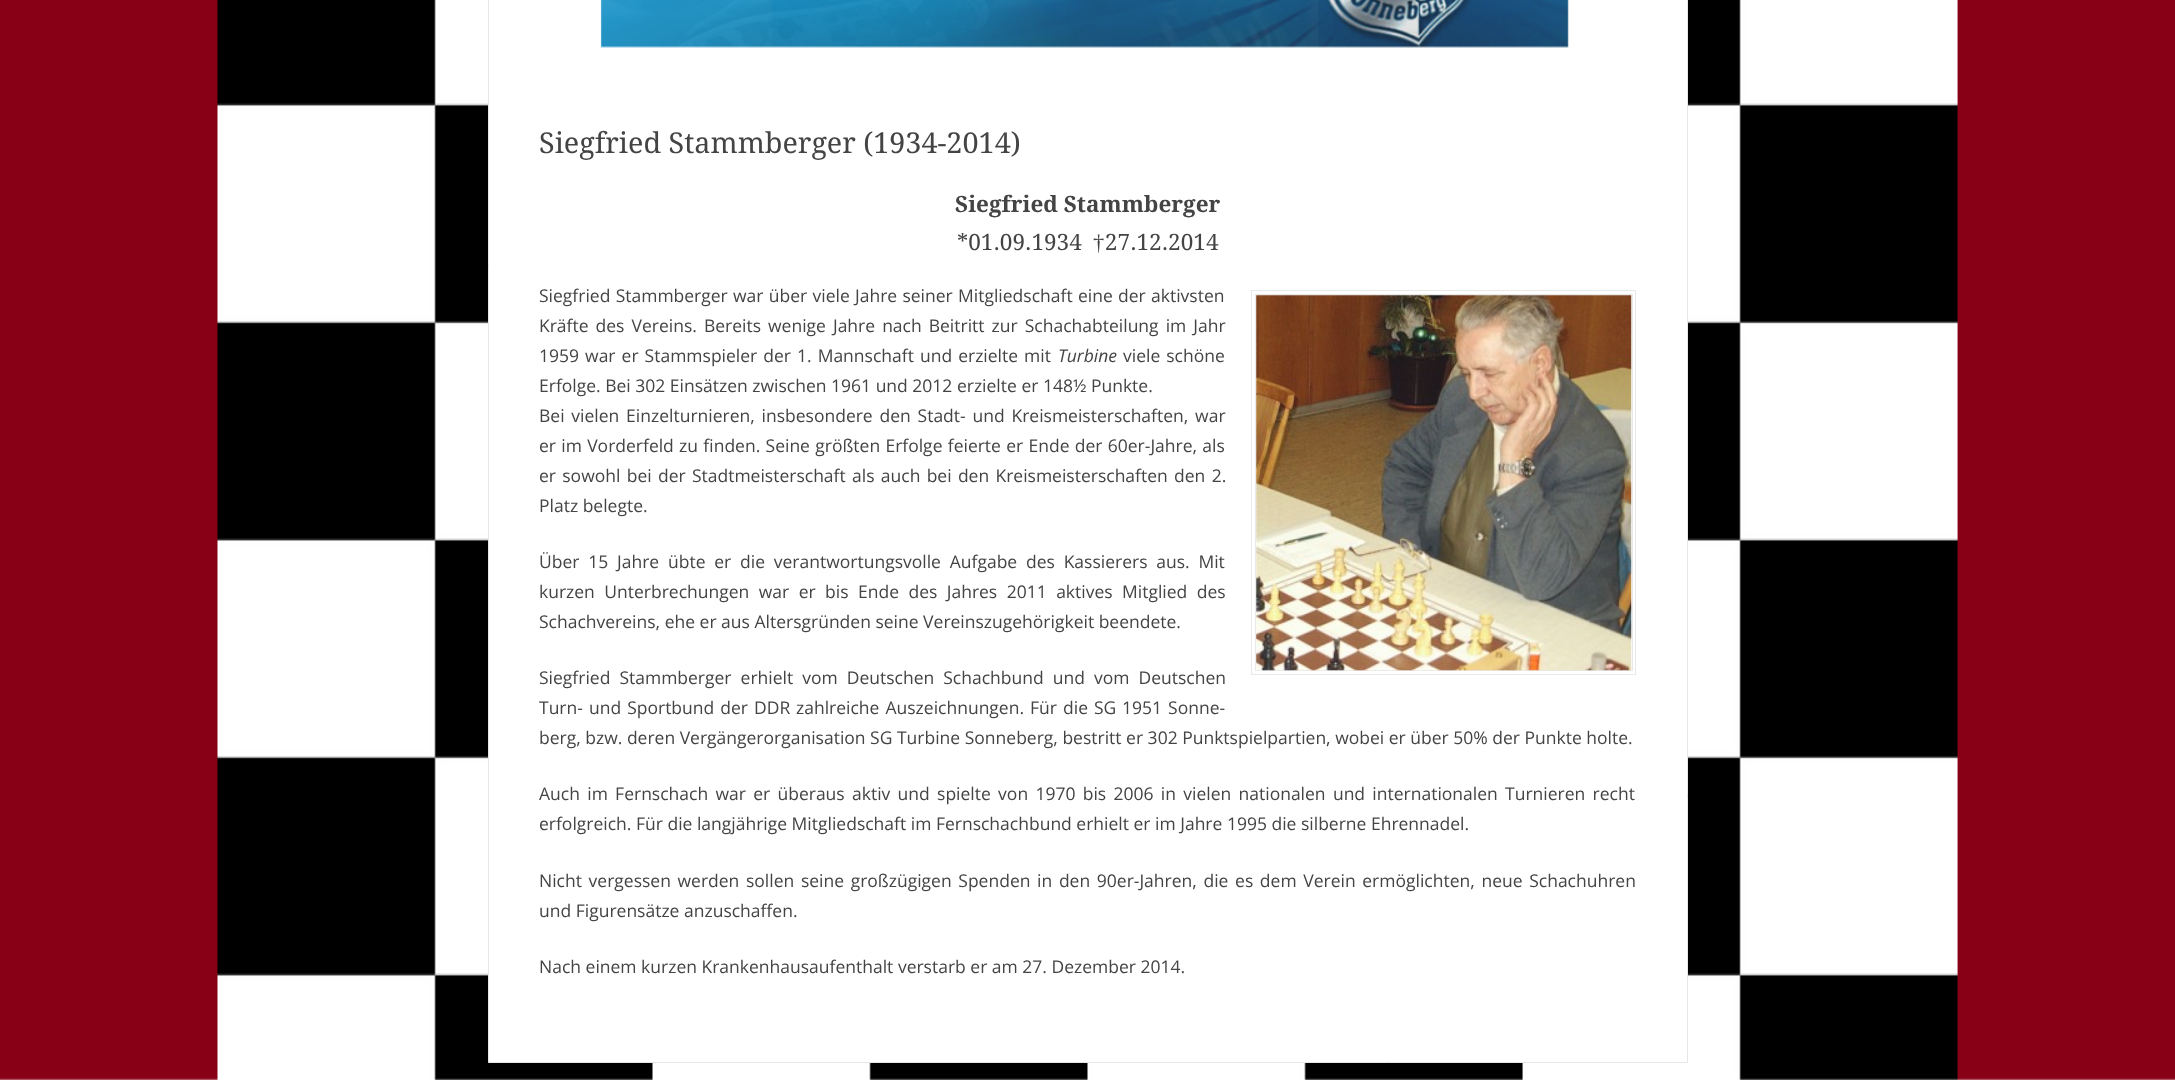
async function draw(canvas) {
  canvas.width = 2175;
  canvas.height = 1080;
  const ctx = canvas.getContext('2d');
  ctx.miterLimit = 4;
  ctx.fontKerning = 'normal';
  function label(s, x, y, font, color) {
    ctx.font = font;
    ctx.fillStyle = color;
    ctx.fillText(s, x, y);
  }
  function rect(x, y, w, h, color) {
    ctx.fillStyle = color;
    ctx.fillRect(x, y, w, h);
  }
  async function image(src, x, y, w, h) {
    const img = new Image();
    img.src = src;
    await img.decode();
    ctx.drawImage(img, x, y, w, h);
  }

  rect(0, 0, 2175, 1080, '#fff');
  await image('assets/img1.png', 0, 0, 2175, 1080);
  ctx.beginPath();
  ctx.rect(488.5, -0.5, 1199, 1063);
  ctx.fill();
  ctx.strokeStyle = '#e6e6e6';
  ctx.stroke();
  await image('assets/img2.png', 600, 0, 969, 48);
  label('Siegfried Stammberger (1934-2014)', 539, 153, '28.75px Droid Serif', '#444');
  label('Siegfried Stammberger', 955, 212, 'bold 22.5px Droid Serif', '#444');
  label('*01.09.1934', 957, 250, '22.5px Droid Serif', '#444');
  label('†', 1093, 250, '22.5px Liberation Serif', '#444');
  label('27.12.2014', 1105, 250, '22.5px Droid Serif', '#444');
  ctx.wordSpacing = '0.75px';
  label('Siegfried Stammberger war über viele Jahre seiner Mitgliedschaft eine der aktivsten', 539, 302, '17.5px Open Sans', '#444');
  ctx.strokeStyle = '#e8e8e8';
  ctx.strokeRect(1251.5, 290.5, 384, 384);
  ctx.strokeRect(1255.5, 294.5, 377, 376);
  await image('assets/img3.png', 1256, 295, 376, 376);
  ctx.wordSpacing = '2.5px';
  label('Kräfte des Vereins. Bereits wenige Jahre nach Beitritt zur Schachabteilung im Jahr', 539, 332, '17.5px Open Sans', '#444');
  ctx.wordSpacing = '1.5px';
  label('1959 war er Stammspieler der 1. Mannschaft und erzielte mit', 539, 362, '17.5px Open Sans', '#444');
  ctx.wordSpacing = '0px';
  label('Turbine', 1058, 362, 'italic 17.5px Open Sans', '#444');
  ctx.wordSpacing = '1.5px';
  label('viele schöne', 1123, 362, '17.5px Open Sans', '#444');
  ctx.wordSpacing = '0px';
  label('Erfolge. Bei 302 Einsätzen zwischen 1961 und 2012 erzielte er 148½ Punkte.', 539, 392, '17.5px Open Sans', '#444');
  ctx.wordSpacing = '2.25px';
  label('Bei vielen Einzelturnieren, insbesondere den Stadt- und Kreismeisterschaften, war', 539, 422, '17.5px Open Sans', '#444');
  ctx.wordSpacing = '0.75px';
  label('er im Vorderfeld zu finden. Seine größten Erfolge feierte er Ende der 60er-Jahre, als', 539, 452, '17.5px Open Sans', '#444');
  ctx.wordSpacing = '1.75px';
  label('er sowohl bei der Stadtmeisterschaft als auch bei den Kreismeisterschaften den 2.', 539, 482, '17.5px Open Sans', '#444');
  ctx.wordSpacing = '0px';
  label('Platz belegte.', 539, 512, '17.5px Open Sans', '#444');
  ctx.wordSpacing = '4.25px';
  label('Über 15 Jahre übte er die verantwortungsvolle Aufgabe des Kassierers aus. Mit', 539, 568, '17.5px Open Sans', '#444');
  ctx.wordSpacing = '4.9px';
  label('kurzen Unterbrechungen war er bis Ende des Jahres 2011 aktives Mitglied des', 539, 598, '17.5px Open Sans', '#444');
  ctx.wordSpacing = '0px';
  label('Schachvereins, ehe er aus Altersgründen seine Vereinszugehörigkeit beendete.', 539, 628, '17.5px Open Sans', '#444');
  ctx.wordSpacing = '4.5px';
  label('Siegfried Stammberger erhielt vom Deutschen Schachbund und vom Deutschen', 539, 684, '17.5px Open Sans', '#444');
  ctx.wordSpacing = '1.5px';
  label('Turn- und Sportbund der', 539, 714, '17.5px Open Sans', '#444');
  ctx.wordSpacing = '0px';
  label('DDR', 754, 714, '17.5px Open Sans', '#444');
  ctx.wordSpacing = '1.5px';
  label('zahlreiche Auszeichnungen. Für die', 796, 714, '17.5px Open Sans', '#444');
  ctx.wordSpacing = '0px';
  label('SG', 1094, 714, '17.5px Open Sans', '#444');
  ctx.wordSpacing = '1.5px';
  label('1951 Sonne-', 1122, 714, '17.5px Open Sans', '#444');
  ctx.wordSpacing = '0px';
  label('berg, bzw. deren Vergängerorganisation SG Turbine Sonneberg, bestritt er 302 Punktspielpartien, wobei er über 50% der Punkte holte.', 539, 744, '17.5px Open Sans', '#444');
  ctx.wordSpacing = '2.75px';
  label('Auch im Fernschach war er überaus aktiv und spielte von 1970 bis 2006 in vielen nationalen und internationalen Turnieren recht', 539, 800, '17.5px Open Sans', '#444');
  ctx.wordSpacing = '0px';
  label('erfolgreich. Für die langjährige Mitgliedschaft im Fernschachbund erhielt er im Jahre 1995 die silberne Ehrennadel.', 539, 830, '17.5px Open Sans', '#444');
  ctx.wordSpacing = '2.1px';
  label('Nicht vergessen werden sollen seine großzügigen Spenden in den 90er-Jahren, die es dem Verein ermöglichten, neue Schachuhren', 539, 887, '17.5px Open Sans', '#444');
  ctx.wordSpacing = '0px';
  label('und Figurensätze anzuschaffen.', 539, 917, '17.5px Open Sans', '#444');
  label('Nach einem kurzen Krankenhausaufenthalt verstarb er am 27. Dezember 2014.', 539, 973, '17.5px Open Sans', '#444');
}

draw(document.querySelector('canvas'));
